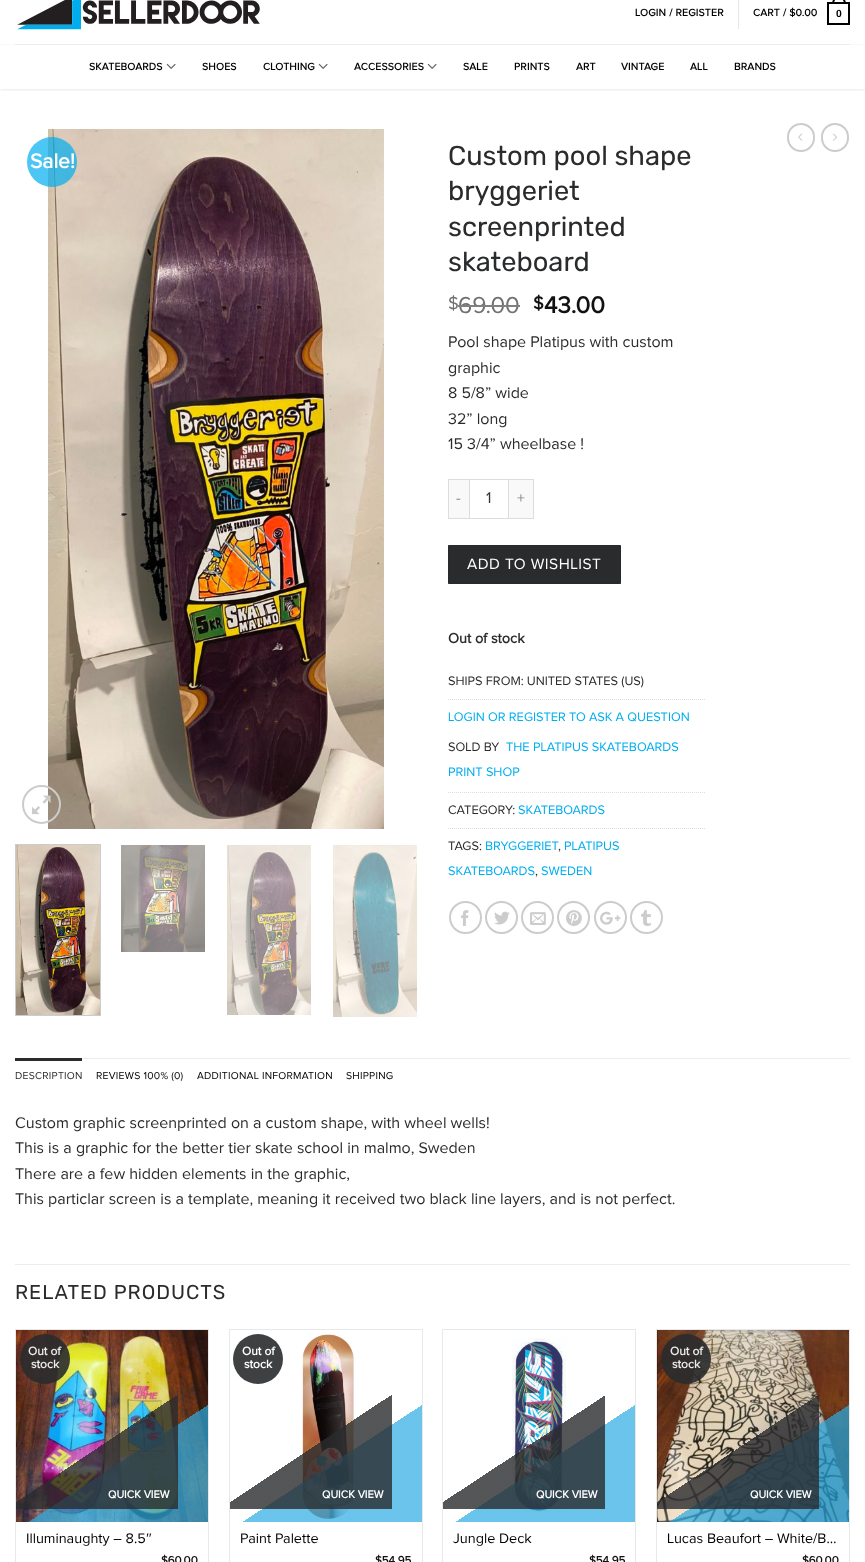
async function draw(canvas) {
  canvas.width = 865;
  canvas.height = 1562;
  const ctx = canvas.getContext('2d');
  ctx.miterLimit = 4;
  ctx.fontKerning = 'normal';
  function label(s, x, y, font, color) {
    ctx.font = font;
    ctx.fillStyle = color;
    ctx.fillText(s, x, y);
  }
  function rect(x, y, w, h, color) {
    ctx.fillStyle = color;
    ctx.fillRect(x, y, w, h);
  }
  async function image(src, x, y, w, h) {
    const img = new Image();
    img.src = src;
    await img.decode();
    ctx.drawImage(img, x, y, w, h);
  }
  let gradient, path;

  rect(0, 0, 865, 1562, '#fff');
  ctx.save();
  ctx.beginPath();
  ctx.rect(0, 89, 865, 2);
  ctx.clip();
  ctx.fillStyle = '#171b1f26';
  ctx.filter = 'blur(2px)';
  ctx.beginPath();
  ctx.rect(0, 44, 865, 45);
  ctx.fill();
  ctx.filter = 'none';
  ctx.restore();
  rect(0, 41, 865, 3, '#fff');
  await image('assets/img1.png', 17, 0, 243, 30);
  ctx.letterSpacing = '0.25px';
  label('LOGIN / REGISTER', 635, 16, 'bold 10.4px Proxima Nova', '#000');
  rect(738, 0, 1, 29, '#e6e6e6');
  label('CART / $0.00', 753, 16, 'bold 10.4px Proxima Nova', '#000');
  ctx.strokeStyle = '#000';
  ctx.lineWidth = 2;
  ctx.strokeRect(828, 3, 21, 21);
  path = new Path2D('M839-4C843.5-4 846 0 846 4H832C832 0 834.5-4 839-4ZM839-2C842.5-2 844 1 844 4H834C834 1 835.5-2 839-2Z');
  ctx.fill(path, 'evenodd');
  label('0', 836, 17, 'bold 10.4px Liberation Sans', '#000');
  rect(15, 44, 835, 1, '#ededed');
  rect(0, 44, 15, 1, '#f9f9f9');
  rect(850, 44, 15, 1, '#f9f9f9');
  label('SKATEBOARDS', 89, 70, 'bold 10.4px Proxima Nova', '#000');
  await image('assets/img2.png', 166, 63, 10, 6);
  label('SHOES', 202, 70, 'bold 10.4px Proxima Nova', '#000');
  label('CLOTHING', 263, 70, 'bold 10.4px Proxima Nova', '#000');
  await image('assets/img2.png', 318, 63, 10, 6);
  label('ACCESSORIES', 354, 70, 'bold 10.4px Proxima Nova', '#000');
  await image('assets/img2.png', 427, 63, 10, 6);
  label('SALE', 463, 70, 'bold 10.4px Proxima Nova', '#000');
  label('PRINTS', 514, 70, 'bold 10.4px Proxima Nova', '#000');
  label('ART', 576, 70, 'bold 10.4px Proxima Nova', '#000');
  label('VINTAGE', 621, 70, 'bold 10.4px Proxima Nova', '#000');
  label('ALL', 690, 70, 'bold 10.4px Proxima Nova', '#000');
  label('BRANDS', 734, 70, 'bold 10.4px Proxima Nova', '#000');
  ctx.beginPath();
  ctx.roundRect(788, 124, 26, 27, 13);
  ctx.strokeStyle = '#ccc';
  ctx.stroke();
  await image('assets/img3.png', 798, 133, 5, 8);
  ctx.beginPath();
  ctx.roundRect(822, 124, 26, 27, 13);
  ctx.stroke();
  await image('assets/img4.png', 833, 133, 4, 8);
  await image('assets/img5.png', 48, 129, 336, 700);
  ctx.fillStyle = '#00aeefb3';
  ctx.beginPath();
  ctx.arc(52, 162, 25, 0, 2 * Math.PI);
  ctx.fill();
  ctx.letterSpacing = '0px';
  label('Sale!', 30, 168, 'bold 21px Proxima Nova', '#fff');
  ctx.beginPath();
  ctx.arc(41.5, 804.5, 18.5, 0, 2 * Math.PI);
  ctx.stroke();
  await image('assets/img6.png', 32, 795, 19, 20);
  ctx.lineWidth = 1;
  ctx.strokeRect(15.5, 844.5, 85, 171);
  await image('assets/img7.png', 16, 845, 84, 170);
  await image('assets/img8.png', 121, 845, 84, 107);
  await image('assets/img9.png', 227, 845, 84, 170);
  await image('assets/img10.png', 333, 845, 84, 172);
  label('Custom pool shape', 448, 165, '27.25px Rubik', '#2a2b2d');
  label('bryggeriet', 448, 200, '27.25px Rubik', '#2a2b2d');
  label('screenprinted', 448, 236, '27.25px Rubik', '#2a2b2d');
  label('skateboard', 448, 271, '27.25px Rubik', '#2a2b2d');
  label('$', 448, 309, '18px Proxima Nova', '#707070');
  label('69.00', 458, 313, '24px Proxima Nova', '#707070');
  rect(458, 305, 62, 2, '#7f8081');
  label('$', 533, 309, 'bold 18px Proxima Nova', '#111');
  label('43.00', 544, 313, 'bold 24px Proxima Nova', '#111');
  label('Pool shape Platipus with custom', 448, 347, '16px Proxima Nova', '#2a2b2d');
  label('graphic', 448, 373, '16px Proxima Nova', '#2a2b2d');
  label('8 5/8” wide', 448, 398, '16px Proxima Nova', '#2a2b2d');
  label('32” long', 448, 424, '16px Proxima Nova', '#2a2b2d');
  label('15 3/4” wheelbase !', 448, 449, '16px Proxima Nova', '#2a2b2d');
  rect(449, 480, 20, 38, '#f9f9f9');
  rect(448, 479, 21, 1, '#ddd');
  rect(448, 518, 21, 1, '#ddd');
  rect(448, 479, 1, 40, '#ddd');
  ctx.letterSpacing = '0.5px';
  label('-', 456, 503, '15.5px Proxima Nova', '#888');
  ctx.strokeStyle = '#ddd';
  ctx.strokeRect(469.5, 479.5, 39, 39);
  ctx.letterSpacing = '0px';
  label('1', 486, 503, '16px Proxima Nova', '#333');
  rect(509, 480, 24, 38, '#f9f9f9');
  rect(509, 479, 25, 1, '#ddd');
  rect(533, 479, 1, 40, '#ddd');
  rect(509, 518, 25, 1, '#ddd');
  ctx.letterSpacing = '0.5px';
  label('+', 517, 503, '15.5px Proxima Nova', '#888');
  ctx.fillStyle = '#2a2b2d';
  ctx.beginPath();
  ctx.rect(448.5, 545.5, 172, 38);
  ctx.fill();
  ctx.strokeStyle = '#28292b';
  ctx.stroke();
  label('ADD TO WISHLIST', 467, 569, '15.5px Proxima Nova', '#fff');
  ctx.letterSpacing = '0px';
  label('Out of stock', 448, 643, 'bold 14.4px Proxima Nova', '#2a2b2d');
  label('SHIPS FROM: UNITED STATES (US)', 448, 685, '12.75px Proxima Nova', '#2a2b2d');
  path = new Path2D('M448 699.5H706');
  ctx.strokeStyle = '#ddd';
  ctx.setLineDash([1, 1]);
  ctx.stroke(path);
  label('LOGIN OR REGISTER TO ASK A QUESTION', 448, 721, '12.75px Proxima Nova', '#00aeef');
  label('SOLD BY', 448, 751, '12.75px Proxima Nova', '#2a2b2d');
  label('THE PLATIPUS SKATEBOARDS', 506, 751, '12.75px Proxima Nova', '#00aeef');
  label('PRINT SHOP', 448, 776, '12.75px Proxima Nova', '#00aeef');
  path = new Path2D('M448 792.5H706');
  ctx.stroke(path);
  label('CATEGORY:', 448, 814, '12.75px Proxima Nova', '#2a2b2d');
  label('SKATEBOARDS', 518, 814, '12.75px Proxima Nova', '#00aeef');
  path = new Path2D('M448 828.5H706');
  ctx.stroke(path);
  label('TAGS:', 448, 850, '12.75px Proxima Nova', '#2a2b2d');
  label('BRYGGERIET', 485, 850, '12.75px Proxima Nova', '#00aeef');
  label('PLATIPUS', 564, 850, '12.75px Proxima Nova', '#00aeef');
  label(',', 558, 850, '12.75px Proxima Nova', '#2a2b2d');
  label('SKATEBOARDS', 448, 875, '12.75px Proxima Nova', '#00aeef');
  label(',', 535, 875, '12.75px Proxima Nova', '#2a2b2d');
  label('SWEDEN', 541, 875, '12.75px Proxima Nova', '#00aeef');
  ctx.beginPath();
  ctx.arc(465.5, 917.5, 15.5, 0, 2 * Math.PI);
  ctx.strokeStyle = '#ccc';
  ctx.lineWidth = 2;
  ctx.setLineDash([]);
  ctx.stroke();
  await image('assets/img11.png', 461, 910, 8, 16);
  ctx.beginPath();
  ctx.arc(501.5, 917.5, 15.5, 0, 2 * Math.PI);
  ctx.stroke();
  await image('assets/img12.png', 494, 911, 16, 14);
  ctx.beginPath();
  ctx.arc(537.5, 917.5, 15.5, 0, 2 * Math.PI);
  ctx.stroke();
  await image('assets/img13.png', 530, 912, 16, 13);
  ctx.beginPath();
  ctx.arc(573.5, 917.5, 15.5, 0, 2 * Math.PI);
  ctx.stroke();
  await image('assets/img14.png', 566, 910, 16, 16);
  ctx.beginPath();
  ctx.arc(610.5, 917.5, 15.5, 0, 2 * Math.PI);
  ctx.stroke();
  await image('assets/img15.png', 600, 911, 21, 14);
  ctx.beginPath();
  ctx.arc(646.5, 917.5, 15.5, 0, 2 * Math.PI);
  ctx.stroke();
  await image('assets/img16.png', 641, 910, 10, 16);
  rect(82, 1058, 768, 1, '#ececec');
  rect(15, 1058, 67, 3, '#2a2b2d');
  ctx.letterSpacing = '0.25px';
  label('DESCRIPTION', 15, 1079, '10.4px Proxima Nova', '#2a2b2d');
  label('REVIEWS 100% (0)', 96, 1079, '10.4px Proxima Nova', '#000');
  label('ADDITIONAL INFORMATION', 197, 1079, '10.4px Proxima Nova', '#000');
  label('SHIPPING', 346, 1079, '10.4px Proxima Nova', '#000');
  ctx.letterSpacing = '0px';
  label('Custom graphic screenprinted on a custom shape, with wheel wells!', 15, 1128, '16px Proxima Nova', '#2a2b2d');
  label('This is a graphic for the better tier skate school in malmo, Sweden', 15, 1153, '16px Proxima Nova', '#2a2b2d');
  label('There are a few hidden elements in the graphic,', 15, 1179, '16px Proxima Nova', '#2a2b2d');
  label('This particlar screen is a template, meaning it received two black line layers, and is not perfect.', 15, 1204, '16px Proxima Nova', '#2a2b2d');
  rect(15, 1264, 835, 1, '#ececec');
  ctx.letterSpacing = '1px';
  label('RELATED PRODUCTS', 15, 1299, '20px Rubik', '#2a2b2d');
  ctx.fillStyle = '#e6e8ea';
  path = new Path2D('M15 1329H209L208 1330H16Z');
  ctx.fill(path);
  ctx.fillStyle = '#bdc3c761';
  path = new Path2D('M209 1329V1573H208V1330Z');
  ctx.fill(path);
  path = new Path2D('M15 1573V1329L16 1330V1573Z');
  ctx.fill(path);
  await image('assets/img17.png', 16, 1330, 192, 192);
  ctx.fillStyle = '#2a2b2de6';
  ctx.beginPath();
  ctx.arc(45, 1359, 25, 0, 2 * Math.PI);
  ctx.fill();
  ctx.letterSpacing = '0px';
  label('Out of', 28, 1355, 'bold 12px Proxima Nova', '#eaeaea');
  label('stock', 31, 1368, 'bold 12px Proxima Nova', '#eaeaea');
  label('QUICK VIEW', 108, 1498, 'bold 11px Proxima Nova', '#fff');
  label('Illuminaughty – 8.5', 26, 1543, '14.4px Proxima Nova', '#000');
  label('″', 146, 1543, '14.4px Liberation Serif', '#000');
  label('$60.00', 161, 1564, 'bold 11.5px Proxima Nova', '#111');
  ctx.fillStyle = '#e6e8ea';
  path = new Path2D('M229 1329H423L422 1330H230Z');
  ctx.fill(path);
  ctx.fillStyle = '#bdc3c761';
  path = new Path2D('M423 1329V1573H422V1330Z');
  ctx.fill(path);
  path = new Path2D('M229 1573V1329L230 1330V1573Z');
  ctx.fill(path);
  ctx.fillStyle = '#3f4042';
  ctx.beginPath();
  ctx.arc(258, 1359, 25, 0, 2 * Math.PI);
  ctx.fill();
  label('Out of', 242, 1355, 'bold 12px Proxima Nova', '#fff');
  label('stock', 244, 1368, 'bold 12px Proxima Nova', '#fff');
  await image('assets/img18.png', 302, 1334, 52, 185);
  gradient = ctx.createLinearGradient(383, 1555, 269, 1380);
  gradient.addColorStop(0.5, '#2babe2b3');
  gradient.addColorStop(0.5, '#2babe200');
  ctx.fillStyle = gradient;
  ctx.fillRect(243, 1405, 179, 117);
  gradient = ctx.createLinearGradient(358, 1531, 253, 1373);
  gradient.addColorStop(0.5, '#2a2b2dcc');
  gradient.addColorStop(0.5, '#2a2b2d00');
  ctx.fillStyle = gradient;
  ctx.fillRect(230, 1395, 162, 114);
  label('QUICK VIEW', 322, 1498, 'bold 11px Proxima Nova', '#fff');
  label('Paint Palette', 240, 1543, '14.4px Proxima Nova', '#000');
  label('$54.95', 375, 1564, 'bold 11.5px Proxima Nova', '#111');
  ctx.fillStyle = '#e6e8ea';
  path = new Path2D('M442 1329H636L635 1330H443Z');
  ctx.fill(path);
  ctx.fillStyle = '#bdc3c761';
  path = new Path2D('M636 1329V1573H635V1330Z');
  ctx.fill(path);
  path = new Path2D('M442 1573V1329L443 1330V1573Z');
  ctx.fill(path);
  await image('assets/img19.png', 512, 1338, 54, 174);
  gradient = ctx.createLinearGradient(596, 1555, 482, 1380);
  gradient.addColorStop(0.5, '#2babe2b3');
  gradient.addColorStop(0.5, '#2babe200');
  ctx.fillStyle = gradient;
  ctx.fillRect(456, 1405, 179, 117);
  gradient = ctx.createLinearGradient(571, 1531, 467, 1373);
  gradient.addColorStop(0.5, '#2a2b2dcc');
  gradient.addColorStop(0.5, '#2a2b2d00');
  ctx.fillStyle = gradient;
  ctx.fillRect(443, 1396, 162, 113);
  label('QUICK VIEW', 536, 1498, 'bold 11px Proxima Nova', '#fff');
  label('Jungle Deck', 453, 1543, '14.4px Proxima Nova', '#000');
  label('$54.95', 589, 1564, 'bold 11.5px Proxima Nova', '#111');
  ctx.fillStyle = '#e6e8ea';
  path = new Path2D('M656 1329H850L849 1330H657Z');
  ctx.fill(path);
  ctx.fillStyle = '#bdc3c761';
  path = new Path2D('M850 1329V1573H849V1330Z');
  ctx.fill(path);
  path = new Path2D('M656 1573V1329L657 1330V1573Z');
  ctx.fill(path);
  await image('assets/img20.png', 657, 1330, 192, 192);
  ctx.fillStyle = '#2a2b2de6';
  ctx.beginPath();
  ctx.arc(686, 1359, 25, 0, 2 * Math.PI);
  ctx.fill();
  label('Out of', 670, 1355, 'bold 12px Proxima Nova', '#eaeaea');
  label('stock', 672, 1368, 'bold 12px Proxima Nova', '#eaeaea');
  label('QUICK VIEW', 750, 1498, 'bold 11px Proxima Nova', '#fff');
  label('Lucas Beaufort – White/B…', 667, 1543, '14.4px Proxima Nova', '#000');
  label('$60.00', 802, 1564, 'bold 11.5px Proxima Nova', '#111');
}

draw(document.querySelector('canvas'));
